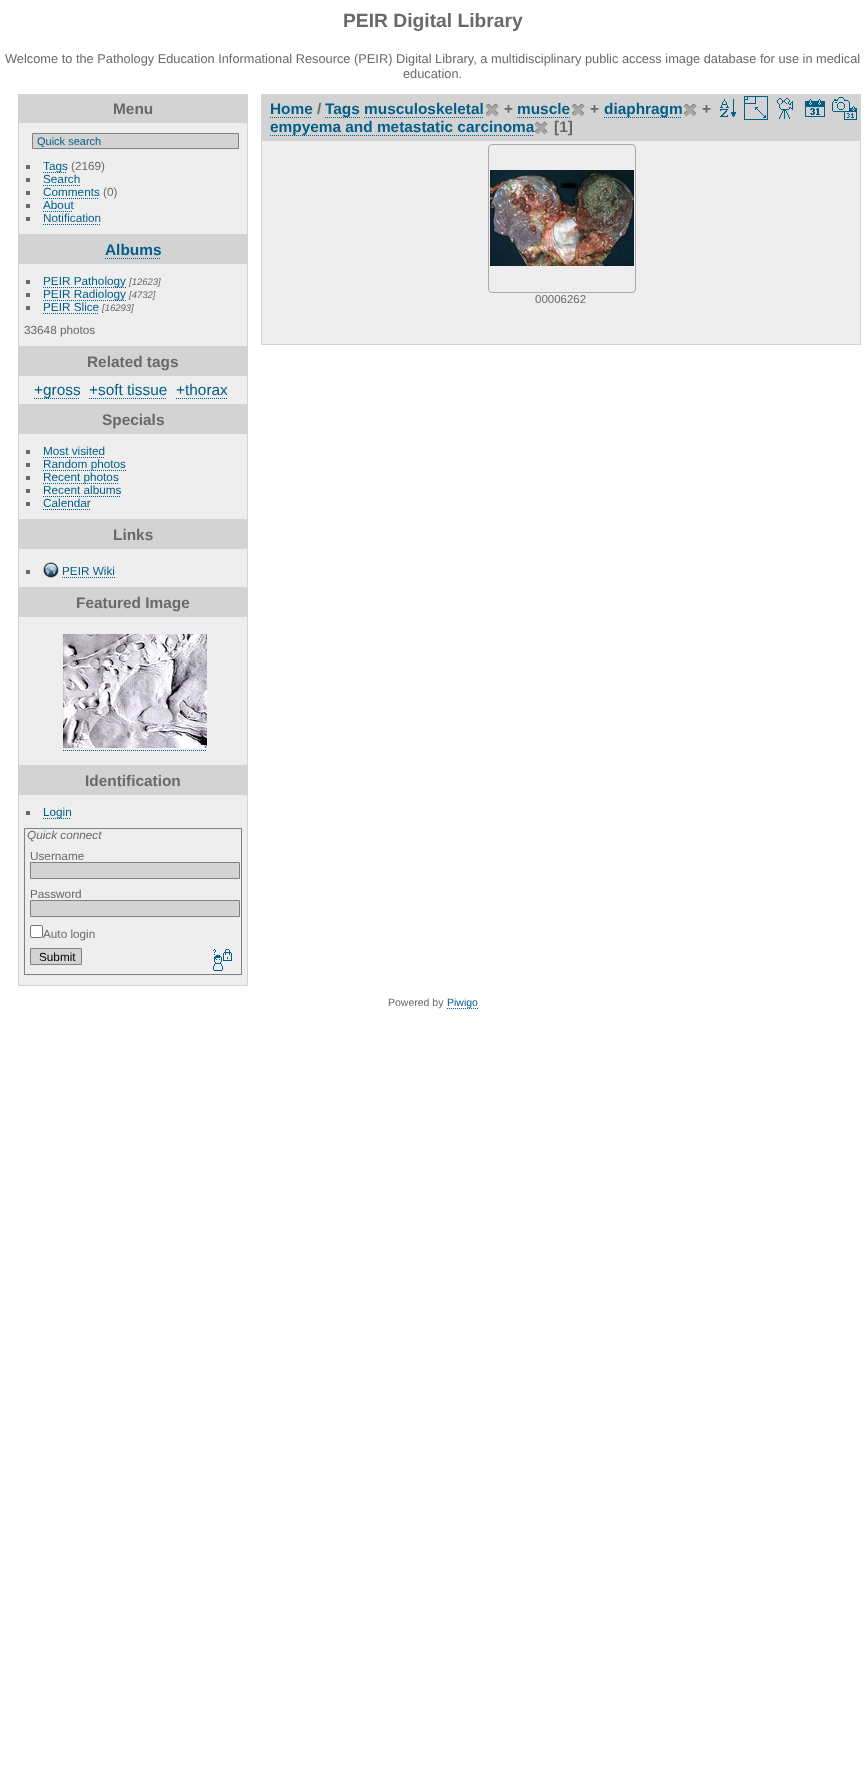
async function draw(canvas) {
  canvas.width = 866;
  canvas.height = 1791;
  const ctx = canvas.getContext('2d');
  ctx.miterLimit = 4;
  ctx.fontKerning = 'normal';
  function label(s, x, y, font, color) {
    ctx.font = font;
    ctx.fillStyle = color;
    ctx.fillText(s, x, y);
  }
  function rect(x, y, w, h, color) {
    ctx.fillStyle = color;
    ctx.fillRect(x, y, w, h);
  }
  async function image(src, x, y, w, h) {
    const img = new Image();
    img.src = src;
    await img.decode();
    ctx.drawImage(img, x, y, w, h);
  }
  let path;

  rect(0, 0, 866, 1791, '#fff');
  label('PEIR Digital Library', 343, 27, 'bold 19.25px Liberation Sans', '#696969');
  label('Welcome to the Pathology Education Informational Resource (PEIR) Digital Library, a multidisciplinary public access image database for use in medical', 5, 63, '12.8px Liberation Sans', '#696969');
  label('education.', 403, 78, '12.8px Liberation Sans', '#696969');
  rect(19, 123, 228, 111, '#eee');
  ctx.strokeStyle = '#d3d3d3';
  ctx.strokeRect(18.5, 94.5, 229, 140);
  rect(19, 95, 228, 28, '#d3d3d3');
  label('Menu', 113, 114, 'bold 15.4px Liberation Sans', '#696969');
  ctx.fillStyle = '#d3d3d3';
  ctx.beginPath();
  ctx.rect(32.5, 133.5, 206, 15);
  ctx.fill();
  ctx.strokeStyle = '#808080';
  ctx.stroke();
  label('Quick search', 37, 145, '11px Liberation Sans', '#005e89');
  rect(26, 165, 4, 4, '#696969');
  path = new Path2D('M43 172.5H67');
  ctx.strokeStyle = '#005e89';
  ctx.setLineDash([1, 1]);
  ctx.stroke(path);
  label('Tags', 43, 170, '11.75px Liberation Sans', '#005e89');
  label('(2169)', 71, 170, '11.75px Liberation Sans', '#696969');
  rect(26, 178, 4, 4, '#696969');
  label('Search', 43, 183, '11.75px Liberation Sans', '#005e89');
  path = new Path2D('M43 185.5H80');
  ctx.stroke(path);
  rect(26, 191, 4, 4, '#696969');
  label('Comments', 43, 196, '11.75px Liberation Sans', '#005e89');
  path = new Path2D('M43 198.5H99');
  ctx.stroke(path);
  label('(0)', 103, 196, '11.75px Liberation Sans', '#696969');
  rect(26, 204, 4, 4, '#696969');
  label('About', 43, 209, '11.75px Liberation Sans', '#005e89');
  path = new Path2D('M43 211.5H73');
  ctx.stroke(path);
  rect(26, 217, 4, 4, '#696969');
  label('Notification', 43, 222, '11.75px Liberation Sans', '#005e89');
  path = new Path2D('M43 224.5H101');
  ctx.stroke(path);
  rect(19, 264, 228, 82, '#eee');
  ctx.strokeStyle = '#d3d3d3';
  ctx.setLineDash([]);
  ctx.strokeRect(18.5, 235.5, 229, 111);
  rect(19, 236, 228, 28, '#d3d3d3');
  label('Albums', 105, 255, 'bold 15.4px Liberation Sans', '#005e89');
  path = new Path2D('M105 258.5H161');
  ctx.strokeStyle = '#005e89';
  ctx.setLineDash([1, 1]);
  ctx.stroke(path);
  rect(26, 280, 4, 4, '#696969');
  path = new Path2D('M43 287.5H126');
  ctx.stroke(path);
  label('PEIR Pathology', 43, 285, '11.75px Liberation Sans', '#005e89');
  label('[12623]', 129, 285, 'italic 9.5px Liberation Sans', '#696969');
  rect(26, 293, 4, 4, '#696969');
  path = new Path2D('M43 300.5H126');
  ctx.stroke(path);
  label('PEIR Radiology', 43, 298, '11.75px Liberation Sans', '#005e89');
  label('[4732]', 129, 298, 'italic 9.5px Liberation Sans', '#696969');
  rect(26, 306, 4, 4, '#696969');
  label('PEIR Slice', 43, 311, '11.75px Liberation Sans', '#005e89');
  path = new Path2D('M43 313.5H99');
  ctx.stroke(path);
  label('[16293]', 102, 311, 'italic 9.5px Liberation Sans', '#696969');
  label('33648 photos', 24, 334, '11.75px Liberation Sans', '#696969');
  rect(19, 376, 228, 28, '#eee');
  ctx.strokeStyle = '#d3d3d3';
  ctx.setLineDash([]);
  ctx.strokeRect(18.5, 347.5, 229, 57);
  rect(19, 348, 228, 28, '#d3d3d3');
  label('Related tags', 87, 367, 'bold 15.4px Liberation Sans', '#696969');
  path = new Path2D('M34 398.5H80');
  ctx.strokeStyle = '#005e89';
  ctx.setLineDash([1, 1]);
  ctx.stroke(path);
  label('+gross', 34, 395, '15.4px Liberation Sans', '#005e89');
  label('+soft tissue', 89, 395, '15.4px Liberation Sans', '#005e89');
  path = new Path2D('M89 398.5H167');
  ctx.stroke(path);
  label('+thorax', 176, 395, '15.4px Liberation Sans', '#005e89');
  path = new Path2D('M176 398.5H227');
  ctx.stroke(path);
  rect(19, 434, 228, 85, '#eee');
  ctx.strokeStyle = '#d3d3d3';
  ctx.setLineDash([]);
  ctx.strokeRect(18.5, 405.5, 229, 114);
  rect(19, 406, 228, 28, '#d3d3d3');
  label('Specials', 102, 425, 'bold 15.4px Liberation Sans', '#696969');
  rect(26, 450, 4, 4, '#696969');
  label('Most visited', 43, 455, '11.75px Liberation Sans', '#005e89');
  path = new Path2D('M43 457.5H105');
  ctx.strokeStyle = '#005e89';
  ctx.setLineDash([1, 1]);
  ctx.stroke(path);
  rect(26, 463, 4, 4, '#696969');
  path = new Path2D('M43 470.5H126');
  ctx.stroke(path);
  label('Random photos', 43, 468, '11.75px Liberation Sans', '#005e89');
  rect(26, 476, 4, 4, '#696969');
  path = new Path2D('M43 483.5H118');
  ctx.stroke(path);
  label('Recent photos', 43, 481, '11.75px Liberation Sans', '#005e89');
  rect(26, 489, 4, 4, '#696969');
  label('Recent albums', 43, 494, '11.75px Liberation Sans', '#005e89');
  path = new Path2D('M43 496.5H121');
  ctx.stroke(path);
  rect(26, 502, 4, 4, '#696969');
  label('Calendar', 43, 507, '11.75px Liberation Sans', '#005e89');
  path = new Path2D('M43 509.5H90');
  ctx.stroke(path);
  rect(19, 549, 228, 38, '#eee');
  ctx.strokeStyle = '#d3d3d3';
  ctx.setLineDash([]);
  ctx.strokeRect(18.5, 520.5, 229, 67);
  rect(19, 521, 228, 28, '#d3d3d3');
  label('Links', 113, 540, 'bold 15.4px Liberation Sans', '#696969');
  rect(26, 570, 4, 4, '#696969');
  await image('assets/img1.png', 43, 562, 16, 16);
  label('PEIR Wiki', 62, 575, '11.75px Liberation Sans', '#005e89');
  path = new Path2D('M62 577.5H115');
  ctx.strokeStyle = '#005e89';
  ctx.setLineDash([1, 1]);
  ctx.stroke(path);
  rect(19, 617, 228, 148, '#eee');
  ctx.strokeStyle = '#d3d3d3';
  ctx.setLineDash([]);
  ctx.strokeRect(18.5, 588.5, 229, 177);
  rect(19, 589, 228, 28, '#d3d3d3');
  label('Featured Image', 76, 608, 'bold 15.4px Liberation Sans', '#696969');
  await image('assets/img2.png', 63, 634, 144, 114);
  path = new Path2D('M63 750.5H207');
  ctx.strokeStyle = '#005e89';
  ctx.setLineDash([1, 1]);
  ctx.stroke(path);
  rect(19, 795, 228, 190, '#eee');
  ctx.strokeStyle = '#d3d3d3';
  ctx.setLineDash([]);
  ctx.strokeRect(18.5, 766.5, 229, 219);
  rect(19, 767, 228, 28, '#d3d3d3');
  label('Identification', 85, 786, 'bold 15.4px Liberation Sans', '#696969');
  rect(26, 811, 4, 4, '#696969');
  path = new Path2D('M43 818.5H71');
  ctx.strokeStyle = '#005e89';
  ctx.setLineDash([1, 1]);
  ctx.stroke(path);
  label('Login', 43, 816, '11.75px Liberation Sans', '#005e89');
  ctx.strokeStyle = '#808080';
  ctx.setLineDash([]);
  ctx.strokeRect(24.5, 828.5, 217, 146);
  label('Quick connect', 27, 839, 'italic 11.75px Liberation Sans', '#696969');
  label('Username', 30, 860, '11.75px Liberation Sans', '#696969');
  ctx.fillStyle = '#d3d3d3';
  ctx.beginPath();
  ctx.rect(30.5, 862.5, 209, 16);
  ctx.fill();
  ctx.stroke();
  label('Password', 30, 898, '11.75px Liberation Sans', '#696969');
  ctx.fillStyle = '#d3d3d3';
  ctx.beginPath();
  ctx.rect(30.5, 900.5, 209, 16);
  ctx.fill();
  ctx.stroke();
  ctx.fillStyle = '#fff';
  ctx.beginPath();
  ctx.roundRect(30.5, 925.5, 12, 12, 1.5);
  ctx.fill();
  ctx.strokeStyle = '#767676';
  ctx.stroke();
  label('Auto login', 43, 938, '11.75px Liberation Sans', '#696969');
  ctx.fillStyle = '#d3d3d3';
  ctx.beginPath();
  ctx.rect(30.5, 948.5, 51, 16);
  ctx.fill();
  ctx.strokeStyle = '#808080';
  ctx.stroke();
  label('Submit', 39, 961, '11.75px Liberation Sans', '#000');
  await image('assets/img3.png', 213, 949, 19, 22);
  rect(262, 141, 598, 203, '#eee');
  ctx.strokeStyle = '#d3d3d3';
  ctx.strokeRect(261.5, 94.5, 599, 250);
  rect(262, 95, 598, 46, '#d3d3d3');
  label('Home', 270, 114, 'bold 15.4px Liberation Sans', '#005e89');
  path = new Path2D('M270 117.5H312');
  ctx.strokeStyle = '#005e89';
  ctx.setLineDash([1, 1]);
  ctx.stroke(path);
  label('/', 317, 114, 'bold 15.4px Liberation Sans', '#696969');
  path = new Path2D('M325 117.5H360');
  ctx.stroke(path);
  label('Tags musculoskeletal', 325, 114, 'bold 15.4px Liberation Sans', '#005e89');
  await image('assets/img4.png', 485, 103, 14, 14);
  label('+', 504, 114, 'bold 15.4px Liberation Sans', '#696969');
  label('muscle', 517, 114, 'bold 15.4px Liberation Sans', '#005e89');
  path = new Path2D('M517 117.5H570');
  ctx.stroke(path);
  await image('assets/img4.png', 571, 103, 14, 14);
  label('+', 590, 114, 'bold 15.4px Liberation Sans', '#696969');
  path = new Path2D('M604 117.5H682');
  ctx.stroke(path);
  label('diaphragm', 604, 114, 'bold 15.4px Liberation Sans', '#005e89');
  await image('assets/img4.png', 683, 103, 14, 14);
  label('+', 702, 114, 'bold 15.4px Liberation Sans', '#696969');
  path = new Path2D('M364 117.5H484');
  ctx.stroke(path);
  path = new Path2D('M270 135.5H533');
  ctx.stroke(path);
  label('empyema and metastatic carcinoma', 270, 132, 'bold 15.4px Liberation Sans', '#005e89');
  await image('assets/img4.png', 534, 121, 14, 14);
  label('[1]', 554, 132, 'bold 15.4px Liberation Sans', '#696969');
  await image('assets/img5.png', 720, 99, 16, 18);
  await image('assets/img6.png', 744, 96, 24, 24);
  await image('assets/img7.png', 777, 98, 16, 21);
  await image('assets/img8.png', 805, 99, 20, 18);
  await image('assets/img9.png', 832, 97, 25, 23);
  ctx.beginPath();
  ctx.roundRect(488.5, 144.5, 147, 148, 3.5);
  ctx.strokeStyle = '#aaa';
  ctx.setLineDash([]);
  ctx.stroke();
  await image('assets/img10.png', 490, 170, 144, 96);
  label('00006262', 535, 303, '11.5px Liberation Sans', '#696969');
  label('Powered by', 388, 1006, '10.5px Liberation Sans', '#696969');
  path = new Path2D('M447 1008.5H478');
  ctx.strokeStyle = '#005e89';
  ctx.setLineDash([1, 1]);
  ctx.stroke(path);
  label('Piwigo', 447, 1006, '10.5px Liberation Sans', '#005e89');
}

draw(document.querySelector('canvas'));
